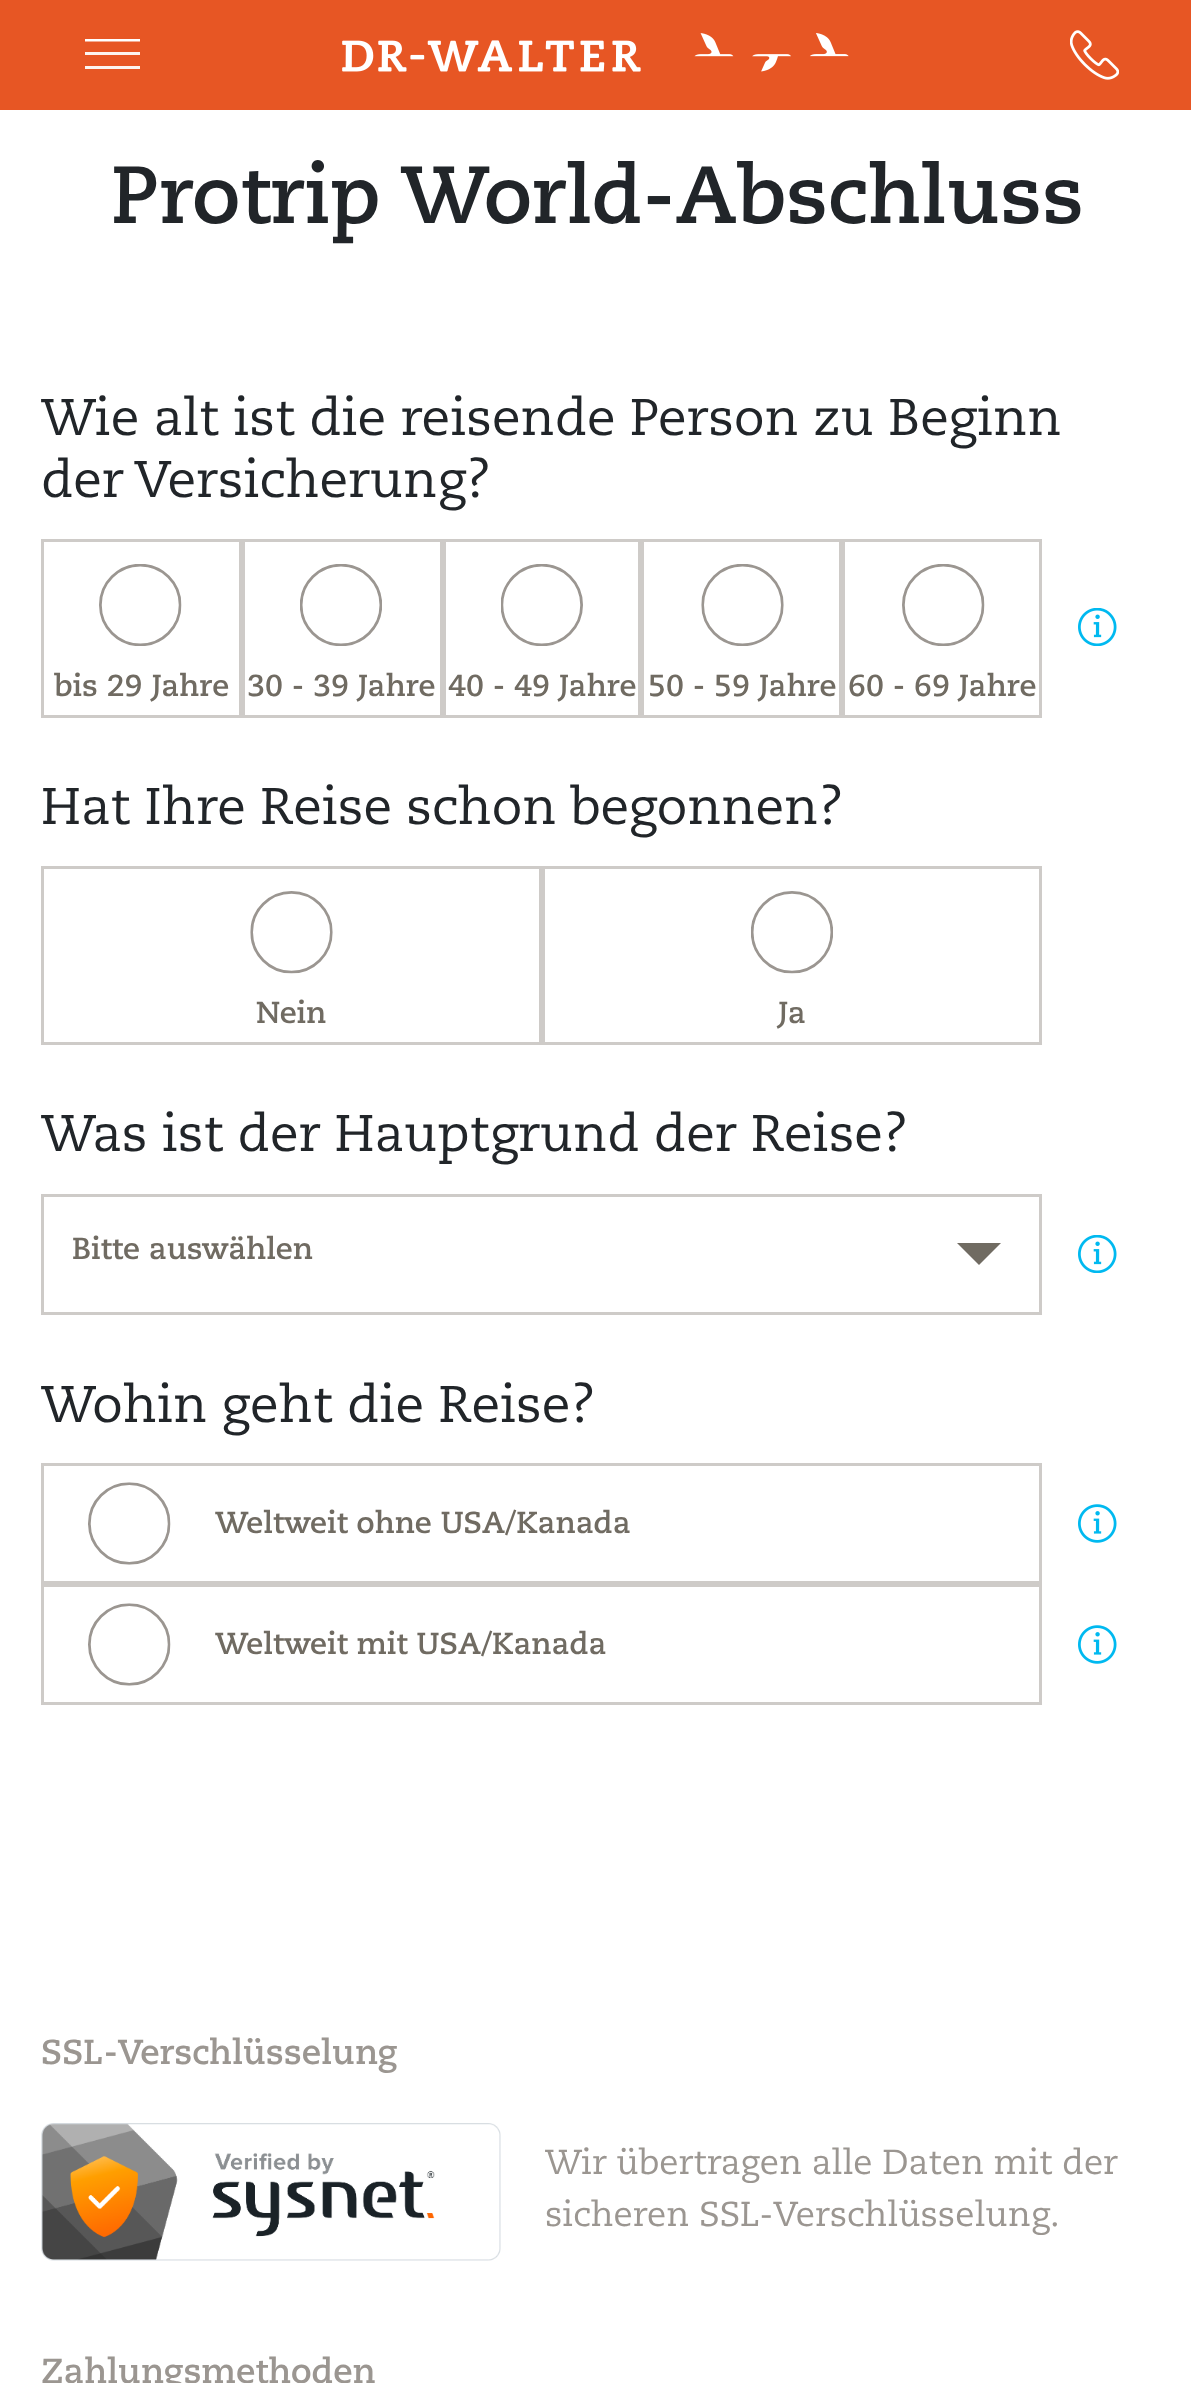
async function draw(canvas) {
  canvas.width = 1191;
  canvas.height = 2383;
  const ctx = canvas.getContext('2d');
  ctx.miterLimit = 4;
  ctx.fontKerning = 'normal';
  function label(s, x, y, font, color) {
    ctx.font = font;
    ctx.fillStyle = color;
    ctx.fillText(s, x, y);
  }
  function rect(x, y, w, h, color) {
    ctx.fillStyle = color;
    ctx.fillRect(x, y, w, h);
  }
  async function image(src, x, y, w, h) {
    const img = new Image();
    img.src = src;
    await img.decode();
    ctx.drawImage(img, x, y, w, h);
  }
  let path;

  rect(0, 0, 1191, 2383, '#fff');
  rect(0, 0, 1191, 110, '#e75624');
  ctx.save();
  ctx.beginPath();
  ctx.rect(85, 39, 55, 30);
  ctx.clip();
  path = new Path2D('M85 40H140');
  ctx.strokeStyle = '#fff';
  ctx.lineWidth = 2.8;
  ctx.stroke(path);
  ctx.restore();
  rect(85, 52, 55, 3, '#fdf4f0');
  rect(85, 66, 55, 3, '#fdf4f0');
  await image('assets/img1.png', 342, 33, 507, 39);
  await image('assets/img2.png', 1070, 30, 49, 50);
  label('Protrip World-Abschluss', 111, 223, 'bold 80.75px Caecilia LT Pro', '#212529');
  label('Wie alt ist die reisende Person zu Beginn', 41, 435, '51.3px Caecilia LT Pro', '#212529');
  label('der Versicherung?', 41, 497, '51.3px Caecilia LT Pro', '#212529');
  await image('assets/img3.png', 1078, 608, 39, 38);
  ctx.strokeStyle = '#cecbc8';
  ctx.lineWidth = 3;
  ctx.strokeRect(42.5, 540.5, 198, 176);
  await image('assets/img4.png', 99, 564, 83, 82);
  label('bis 29 Jahre', 54, 696, 'bold 30.25px Caecilia LT Pro', '#706b62');
  ctx.strokeRect(243.5, 540.5, 198, 176);
  await image('assets/img5.png', 300, 564, 82, 82);
  label('30 - 39 Jahre', 247, 696, 'bold 30.25px Caecilia LT Pro', '#706b62');
  ctx.strokeRect(444.5, 540.5, 195, 176);
  await image('assets/img6.png', 501, 564, 82, 82);
  label('40 - 49 Jahre', 448, 696, 'bold 30.25px Caecilia LT Pro', '#706b62');
  ctx.strokeRect(642.5, 540.5, 198, 176);
  await image('assets/img7.png', 701, 564, 83, 82);
  label('50 - 59 Jahre', 648, 696, 'bold 30.25px Caecilia LT Pro', '#706b62');
  ctx.strokeRect(843.5, 540.5, 197, 176);
  await image('assets/img4.png', 902, 564, 83, 82);
  label('60 - 69 Jahre', 848, 696, 'bold 30.25px Caecilia LT Pro', '#706b62');
  label('Hat Ihre Reise schon begonnen?', 41, 824, '51.3px Caecilia LT Pro', '#212529');
  ctx.strokeRect(42.5, 867.5, 498, 176);
  await image('assets/img8.png', 250, 891, 83, 83);
  label('Nein', 256, 1023, 'bold 30.25px Caecilia LT Pro', '#706b62');
  ctx.strokeRect(543.5, 867.5, 497, 176);
  await image('assets/img9.png', 751, 891, 82, 83);
  label('Ja', 778, 1023, 'bold 30.25px Caecilia LT Pro', '#706b62');
  label('Was ist der Hauptgrund der Reise?', 41, 1151, '51.3px Caecilia LT Pro', '#212529');
  ctx.strokeRect(42.5, 1195.5, 998, 118);
  ctx.fillStyle = '#706b62';
  path = new Path2D('M1001 1243L979 1265L957 1243Z');
  ctx.fill(path);
  label('Bitte auswählen', 72, 1259, 'bold 30.25px Caecilia LT Pro', '#706b62');
  await image('assets/img3.png', 1078, 1235, 39, 38);
  label('Wohin geht die Reise?', 41, 1422, '51.3px Caecilia LT Pro', '#212529');
  ctx.strokeRect(42.5, 1464.5, 998, 118);
  await image('assets/img10.png', 88, 1482, 83, 83);
  label('Weltweit ohne USA/Kanada', 215, 1533, 'bold 30.25px Caecilia LT Pro', '#706b62');
  await image('assets/img11.png', 1078, 1504, 39, 39);
  ctx.strokeRect(42.5, 1585.5, 998, 118);
  await image('assets/img12.png', 88, 1603, 83, 83);
  label('Weltweit mit USA/Kanada', 215, 1654, 'bold 30.25px Caecilia LT Pro', '#706b62');
  await image('assets/img11.png', 1078, 1625, 39, 39);
  label('SSL-Verschlüsselung', 41, 2064, 'bold 34.6px Caecilia LT Pro', '#9b9691');
  await image('assets/img13.png', 41, 2123, 460, 138);
  label('Wir übertragen alle Daten mit der', 545, 2174, '34.6px Caecilia LT Pro', '#9b9691');
  label('sicheren SSL-Verschlüsselung.', 545, 2226, '34.6px Caecilia LT Pro', '#9b9691');
  label('Zahlungsmethoden', 41, 2383, 'bold 34.6px Caecilia LT Pro', '#9b9691');
}

draw(document.querySelector('canvas'));
